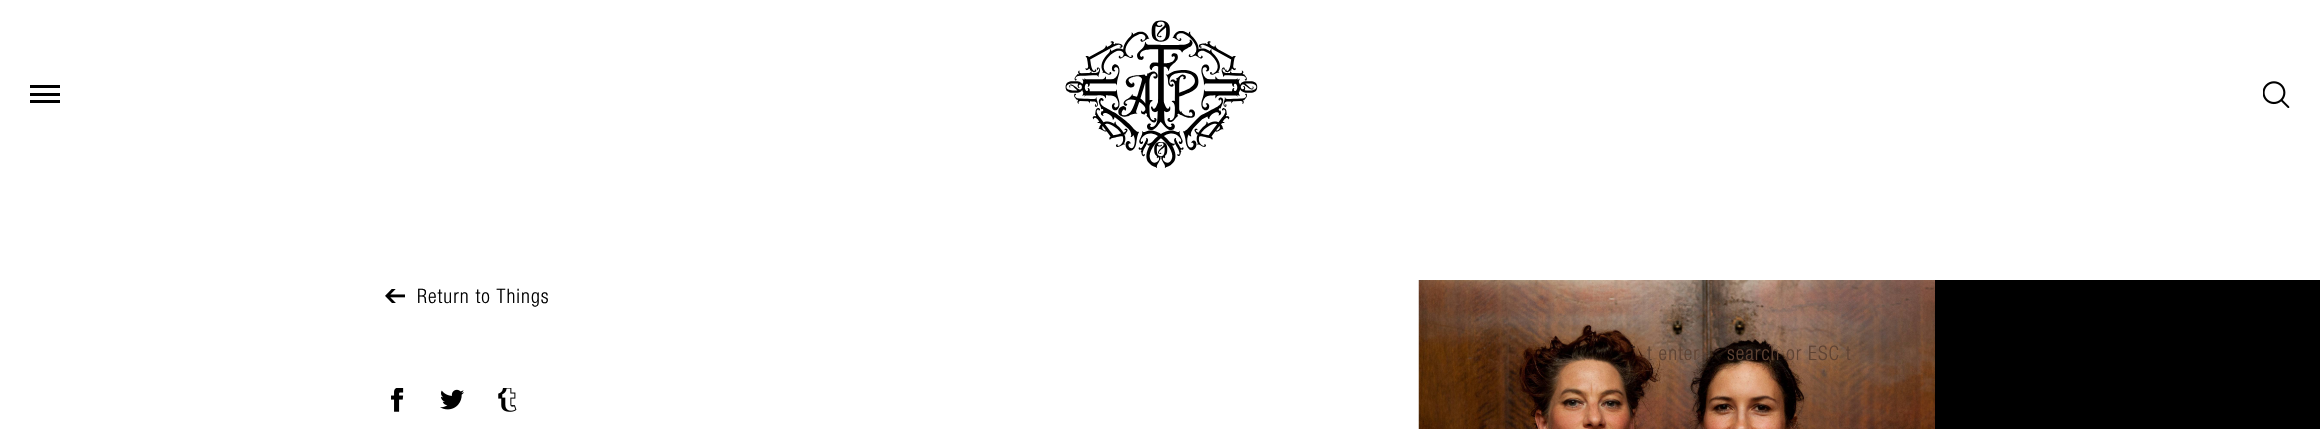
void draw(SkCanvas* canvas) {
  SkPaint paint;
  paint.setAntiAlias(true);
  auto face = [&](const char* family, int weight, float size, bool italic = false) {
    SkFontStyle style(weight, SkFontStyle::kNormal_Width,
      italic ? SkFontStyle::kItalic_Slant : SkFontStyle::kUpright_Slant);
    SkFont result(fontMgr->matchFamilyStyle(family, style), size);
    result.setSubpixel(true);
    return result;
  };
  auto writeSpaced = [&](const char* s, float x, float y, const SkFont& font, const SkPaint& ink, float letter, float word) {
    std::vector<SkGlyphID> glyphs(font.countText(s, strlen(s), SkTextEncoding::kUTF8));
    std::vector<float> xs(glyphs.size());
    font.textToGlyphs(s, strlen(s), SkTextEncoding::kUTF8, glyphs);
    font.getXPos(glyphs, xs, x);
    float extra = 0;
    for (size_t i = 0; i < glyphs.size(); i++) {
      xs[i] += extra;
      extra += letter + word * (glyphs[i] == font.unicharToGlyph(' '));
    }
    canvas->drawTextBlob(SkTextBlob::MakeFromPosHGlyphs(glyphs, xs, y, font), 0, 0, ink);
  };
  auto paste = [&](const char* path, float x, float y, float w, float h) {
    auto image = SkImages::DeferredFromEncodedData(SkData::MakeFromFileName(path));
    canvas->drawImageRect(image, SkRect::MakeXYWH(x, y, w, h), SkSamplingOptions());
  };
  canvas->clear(0xffffffff);
  {
    const struct { float x, y, w, h; SkColor color; } items[] = {
      {30, 85, 30, 3, 0xff000000},
      {30, 93, 30, 3, 0xff000000},
      {30, 100, 30, 3, 0xff000000},
    };
    for (auto [x, y, w, h, color] : items) {
      paint.setColor(color);
      canvas->drawRect(SkRect::MakeXYWH(x, y, w, h), paint);
    }
  }
  paste("img/1.png", 1065, 20, 193, 148);
  paste("img/2.png", 2263, 81, 27, 27);
  paste("img/3.png", 385, 289, 20, 14);
  paste("img/4.png", 391, 388, 13, 24);
  paste("img/5.png", 440, 389, 24, 21);
  paste("img/6.png", 498, 388, 19, 24);
  paste("img/7.png", 1418, 280, 517, 149);
  canvas->drawRect(SkRect::MakeXYWH(1935, 280, 385, 149), paint);
  auto f0 = face("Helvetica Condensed", 300, 20);
  writeSpaced("Return to Things", 417, 303, f0, paint, 1, 0);
  paint.setColor(0xff5f4333);
  writeSpaced("t enter", 1647, 360, f0, paint, 1, 0);
  writeSpaced("search or ESC t", 1727, 360, f0, paint, 1, 0);
}
